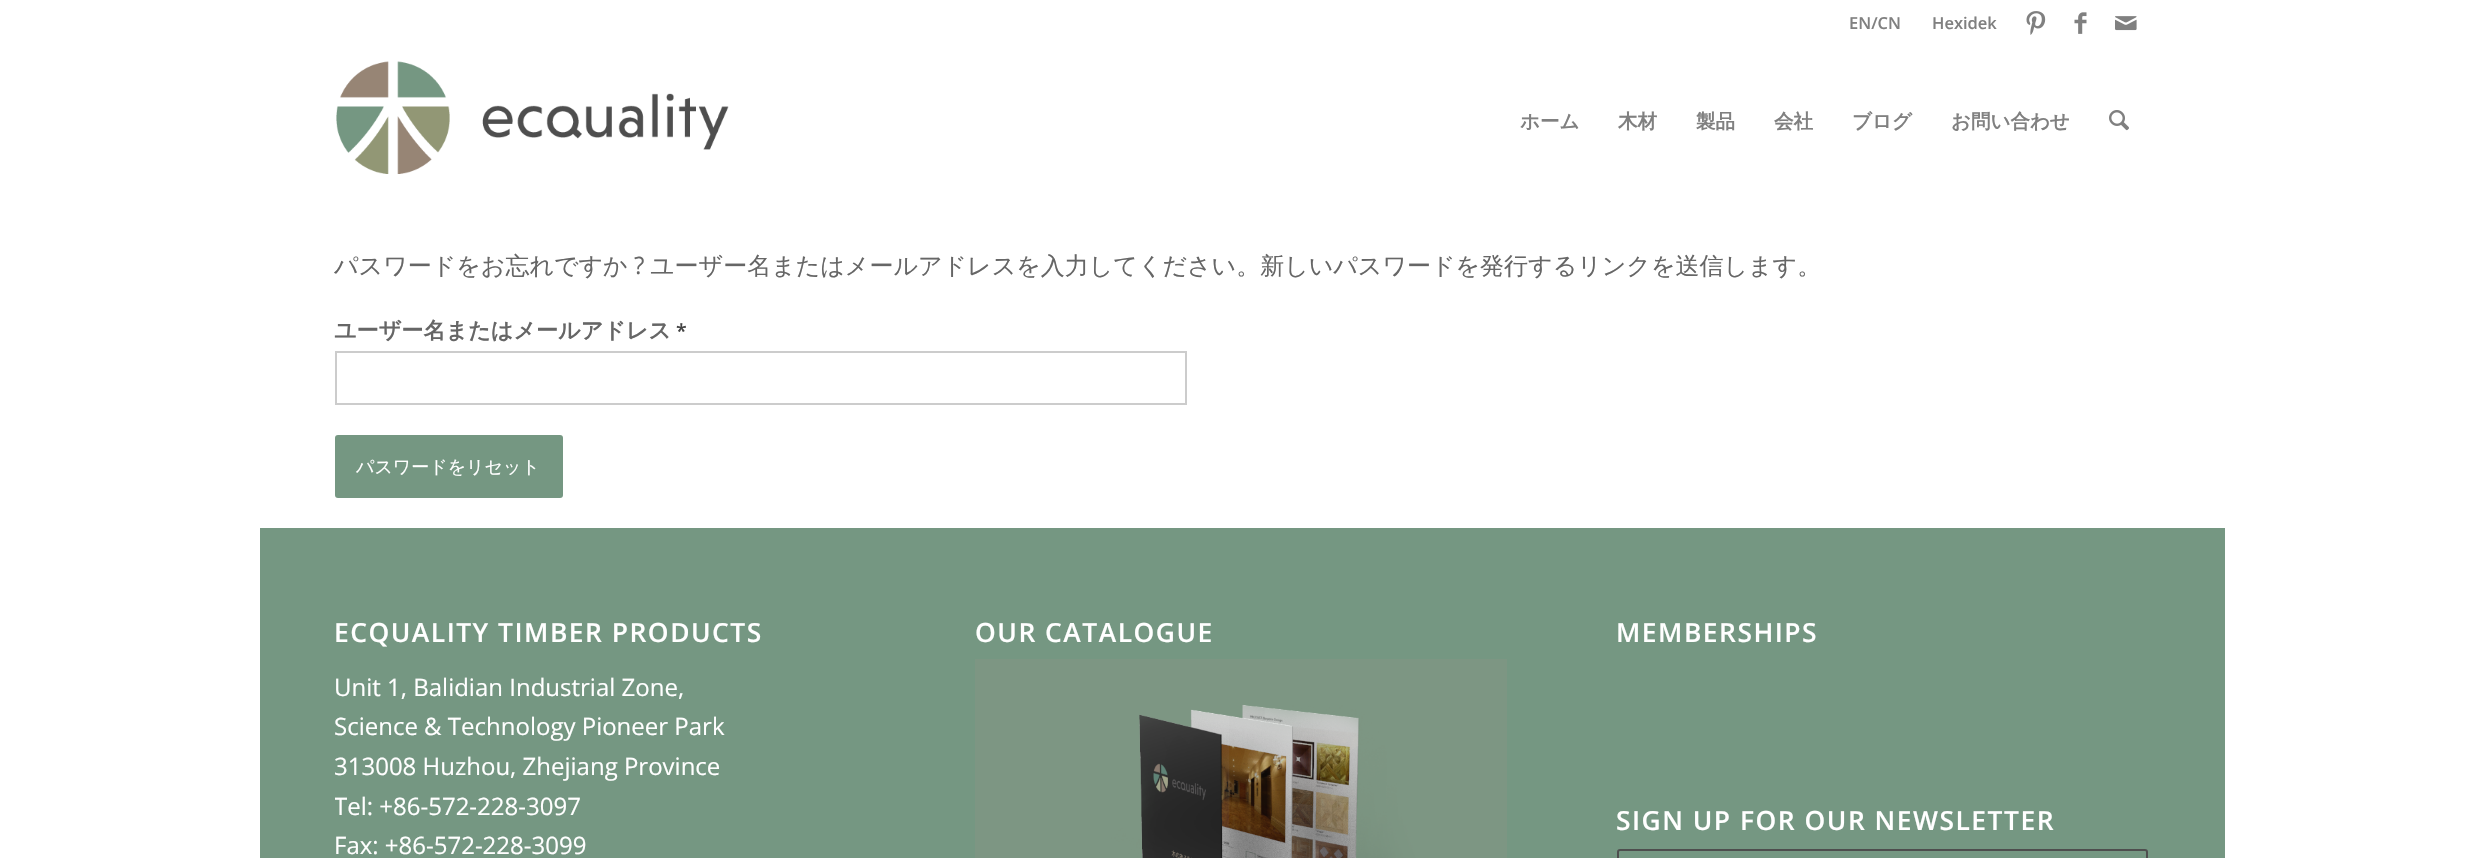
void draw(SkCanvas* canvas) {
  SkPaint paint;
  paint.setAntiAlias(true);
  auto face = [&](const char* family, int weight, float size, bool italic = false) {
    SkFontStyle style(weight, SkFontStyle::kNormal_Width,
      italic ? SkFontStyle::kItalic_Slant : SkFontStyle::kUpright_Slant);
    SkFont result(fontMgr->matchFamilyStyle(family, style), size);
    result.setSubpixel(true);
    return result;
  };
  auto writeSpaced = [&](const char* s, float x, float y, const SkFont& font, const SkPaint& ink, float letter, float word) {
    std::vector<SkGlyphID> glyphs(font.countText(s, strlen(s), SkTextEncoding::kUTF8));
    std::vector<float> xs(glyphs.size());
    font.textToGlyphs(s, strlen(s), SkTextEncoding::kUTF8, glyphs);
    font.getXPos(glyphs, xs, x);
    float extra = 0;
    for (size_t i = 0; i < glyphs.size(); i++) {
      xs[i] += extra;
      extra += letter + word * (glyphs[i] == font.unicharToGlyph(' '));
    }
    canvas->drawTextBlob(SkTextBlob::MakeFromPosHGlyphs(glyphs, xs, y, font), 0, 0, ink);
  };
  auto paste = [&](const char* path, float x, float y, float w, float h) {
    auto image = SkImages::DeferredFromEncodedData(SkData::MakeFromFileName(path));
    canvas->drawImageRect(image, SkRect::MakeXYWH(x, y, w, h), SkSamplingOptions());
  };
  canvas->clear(0xffffffff);
  paste("img/1.png", 2026, 11, 20, 24);
  paste("img/2.png", 2074, 12, 13, 22);
  paste("img/3.png", 2115, 16, 22, 15);
  paste("img/4.png", 336, 61, 393, 113);
  paste("img/5.png", 2109, 110, 20, 21);
  paint.setStroke(true);
  paint.setStrokeWidth(2);
  paint.setColor(0xffcccccc);
  canvas->drawRect(SkRect::MakeXYWH(336, 352, 850, 52), paint);
  paint.setStroke(false);
  paint.setColor(0xff759782);
  canvas->drawRoundRect(SkRect::MakeXYWH(335, 435, 228, 63), 3, 3, paint);
  canvas->drawRect(SkRect::MakeXYWH(260, 528, 1965, 330), paint);
  paste("img/6.png", 975, 659, 532, 199);
  paint.setStroke(true);
  paint.setColor(0xff4e4e4e);
  canvas->drawRoundRect(SkRect::MakeXYWH(1618, 850, 529, 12), 2, 2, paint);
  auto f0 = face("Open Sans", 600, 16.5f);
  paint.setStroke(false);
  paint.setColor(0xff808080);
  canvas->drawString("EN/CN", 1849, 29, f0, paint);
  canvas->drawString("Hexidek", 1932, 29, f0, paint);
  auto f1 = face("WenQuanYi Zen Hei", 700, 19.5f);
  {
    const struct { const char* s; float x, y; } items[] = {
      {"ホーム", 1520, 128},
      {"木材", 1618, 128},
      {"製品", 1696, 128},
      {"会社", 1774, 128},
      {"ブログ", 1852, 128},
      {"お問い合わせ", 1951, 128},
    };
    for (auto [s, x, y] : items) {
      canvas->drawString(s, x, y, f1, paint);
    }
  }
  auto f2 = face("WenQuanYi Zen Hei", 500, 24);
  paint.setColor(0xff666666);
  canvas->drawString("パスワードをお忘れですか", 334, 274, f2, paint);
  auto f3 = face("Open Sans", 400, 24);
  canvas->drawString("?", 634, 274, f3, paint);
  canvas->drawString("ユーザー名またはメールアドレスを入力してください。新しいパスワードを発行するリンクを送信します。", 650, 274, f2, paint);
  auto f4 = face("WenQuanYi Zen Hei", 700, 22.1f);
  canvas->drawString("ユーザー名またはメールアドレス", 334, 338, f4, paint);
  auto f5 = face("Open Sans", 600, 19.5f);
  paint.setColor(0xff444444);
  canvas->drawString("*", 676, 338, f5, paint);
  auto f6 = face("WenQuanYi Zen Hei", 500, 18);
  paint.setColor(0xffffffff);
  canvas->drawString("パスワードをリセット", 356, 473, f6, paint);
  auto f7 = face("Open Sans", 600, 26.4f);
  writeSpaced("ECQUALITY TIMBER PRODUCTS", 334, 642, f7, paint, 1.5f, 0);
  {
    const struct { const char* s; float x, y; } items[] = {
      {"Unit 1, Balidian Industrial Zone,", 334, 696},
      {"Science & Technology Pioneer Park", 334, 735},
      {"313008 Huzhou, Zhejiang Province", 334, 775},
    };
    for (auto [s, x, y] : items) {
      canvas->drawString(s, x, y, f3, paint);
    }
  }
  canvas->save();
  canvas->clipRect(SkRect::MakeXYWH(335, 596, 531, 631));
  canvas->drawString("Tel: +86-572-228-3097", 334, 815, f3, paint);
  canvas->restore();
  canvas->drawString("Fax: +86-572-228-3099", 334, 854, f3, paint);
  {
    const struct { const char* s; float x, y; } items[] = {
      {"OUR CATALOGUE", 975, 642},
      {"MEMBERSHIPS", 1616, 642},
      {"SIGN UP FOR OUR NEWSLETTER", 1616, 830},
    };
    for (auto [s, x, y] : items) {
      writeSpaced(s, x, y, f7, paint, 1.5f, 0);
    }
  }
}
